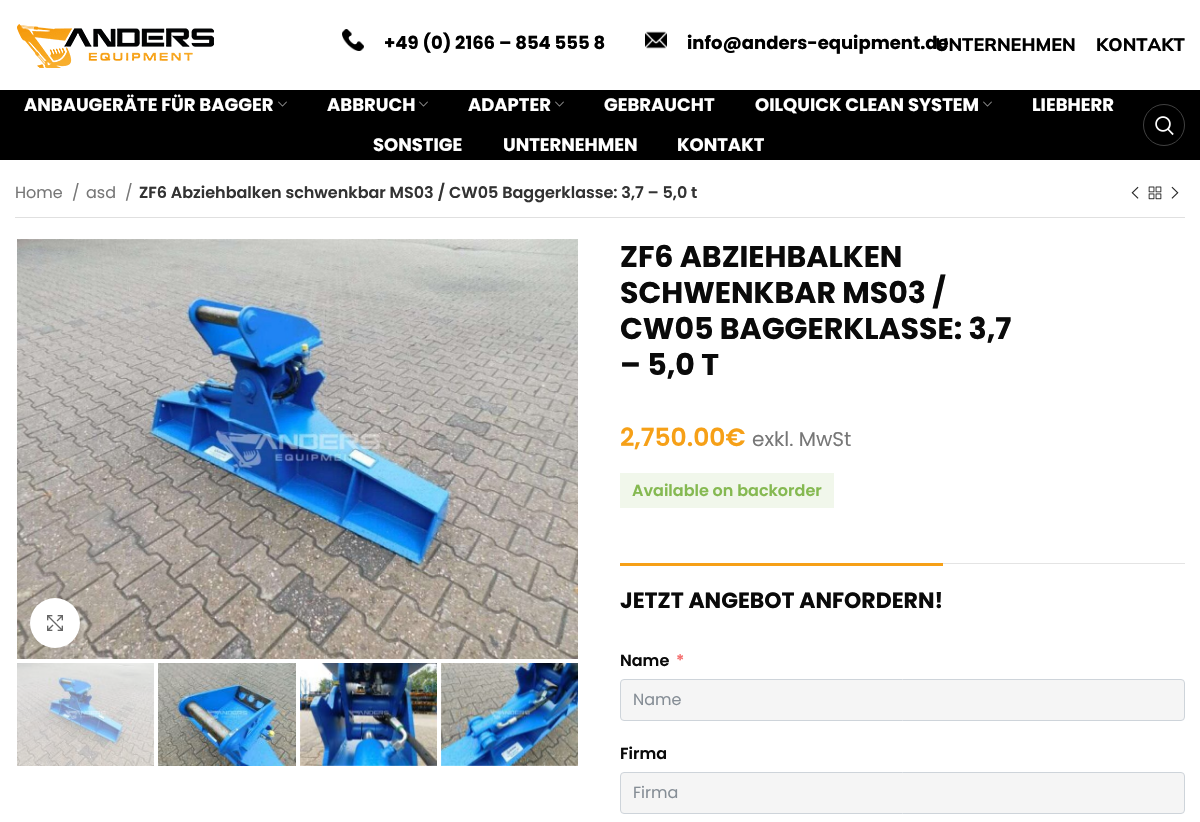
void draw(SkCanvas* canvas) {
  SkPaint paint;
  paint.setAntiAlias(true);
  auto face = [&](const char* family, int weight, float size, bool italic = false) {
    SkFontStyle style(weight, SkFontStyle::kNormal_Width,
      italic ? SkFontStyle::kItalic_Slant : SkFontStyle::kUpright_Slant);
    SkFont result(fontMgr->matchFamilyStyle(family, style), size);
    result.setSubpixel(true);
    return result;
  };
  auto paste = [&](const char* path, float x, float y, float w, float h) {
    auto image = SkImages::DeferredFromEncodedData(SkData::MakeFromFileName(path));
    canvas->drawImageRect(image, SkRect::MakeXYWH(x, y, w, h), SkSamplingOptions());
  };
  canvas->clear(0xffffffff);
  paste("img/1.png", 17, 24, 197, 44);
  paste("img/2.png", 342, 29, 22, 22);
  paste("img/3.png", 645, 31, 22, 18);
  paint.setColor(0xff000000);
  canvas->drawRect(SkRect::MakeXYWH(0, 90, 1200, 70), paint);
  paste("img/4.png", 278, 101, 9, 6);
  paste("img/4.png", 419, 101, 9, 6);
  paste("img/4.png", 555, 101, 9, 6);
  paste("img/4.png", 983, 101, 9, 6);
  paint.setStroke(true);
  paint.setStrokeWidth(1);
  paint.setColor(0xff404040);
  canvas->drawCircle(1164, 125, 20.5f, paint);
  paste("img/5.png", 1155, 116, 19, 20);
  paste("img/6.png", 1131, 186, 8, 13);
  paste("img/7.png", 1148, 186, 14, 14);
  paste("img/8.png", 1171, 186, 8, 13);
  paint.setStroke(false);
  paint.setColor(0xffe0e0e0);
  canvas->drawRect(SkRect::MakeXYWH(15, 217, 1170, 1), paint);
  paste("img/9.png", 17, 239, 561, 420);
  paint.setColor(0x14000000);
  paint.setMaskFilter(SkMaskFilter::MakeBlur(kNormal_SkBlurStyle, 2.5f));
  canvas->drawRoundRect(SkRect::MakeXYWH(30, 598, 50, 50), 25, 25, paint);
  paint.setMaskFilter(nullptr);
  paint.setColor(0xffffffff);
  canvas->drawCircle(55, 623, 25, paint);
  paste("img/10.png", 47, 615, 16, 16);
  paste("img/11.png", 17, 663, 137, 103);
  paste("img/12.png", 158, 663, 138, 103);
  paste("img/13.png", 300, 663, 137, 103);
  paste("img/14.png", 441, 663, 137, 103);
  {
    const struct { float x, y, w, h; SkColor color; } items[] = {
      {620, 473, 214, 35, 0xfff1f7eb},
      {943, 563, 242, 1, 0xffe4e4e4},
      {620, 563, 323, 3, 0xfff6a017},
    };
    for (auto [x, y, w, h, color] : items) {
      paint.setColor(color);
      canvas->drawRect(SkRect::MakeXYWH(x, y, w, h), paint);
    }
  }
  paint.setColor(0xfff5f5f5);
  canvas->drawRoundRect(SkRect::MakeXYWH(620.5f, 679.5f, 564, 41), 3.5f, 3.5f, paint);
  paint.setStroke(true);
  paint.setColor(0xffced4da);
  canvas->drawRoundRect(SkRect::MakeXYWH(620.5f, 679.5f, 564, 41), 3.5f, 3.5f, paint);
  paint.setStroke(false);
  paint.setColor(0xfff5f5f5);
  canvas->drawRoundRect(SkRect::MakeXYWH(620.5f, 772.5f, 564, 41), 3.5f, 3.5f, paint);
  paint.setStroke(true);
  paint.setColor(0xffced4da);
  canvas->drawRoundRect(SkRect::MakeXYWH(620.5f, 772.5f, 564, 41), 3.5f, 3.5f, paint);
  auto f0 = face("Poppins", 700, 18);
  paint.setStroke(false);
  paint.setColor(0xff000000);
  canvas->drawString("+49 (0) 2166 – 854 555 8", 384, 49, f0, paint);
  canvas->drawString("info@anders-equipment.de", 687, 49, f0, paint);
  auto f1 = face("Mulish", 800, 18);
  canvas->drawString("UNTERNEHMEN", 935, 51, f1, paint);
  canvas->drawString("KONTAKT", 1096, 51, f1, paint);
  paint.setColor(0xffffffff);
  {
    const struct { const char* s; float x, y; } items[] = {
      {"ANBAUGERÄTE FÜR BAGGER", 24, 111},
      {"ABBRUCH", 327, 111},
      {"ADAPTER", 468, 111},
      {"GEBRAUCHT", 604, 111},
      {"OILQUICK CLEAN SYSTEM", 755, 111},
      {"LIEBHERR", 1032, 111},
      {"SONSTIGE", 373, 151},
      {"UNTERNEHMEN", 503, 151},
      {"KONTAKT", 677, 151},
    };
    for (auto [s, x, y] : items) {
      canvas->drawString(s, x, y, f0, paint);
    }
  }
  auto f2 = face("Poppins", 400, 16);
  paint.setColor(0xff777777);
  {
    const struct { const char* s; float x, y; } items[] = {
      {"Home", 15, 198},
      {"/", 72, 198},
      {"asd", 86, 198},
      {"/", 125, 198},
    };
    for (auto [s, x, y] : items) {
      canvas->drawString(s, x, y, f2, paint);
    }
  }
  auto f3 = face("Poppins", 600, 16);
  paint.setColor(0xff333333);
  canvas->drawString("ZF6 Abziehbalken schwenkbar MS03 / CW05 Baggerklasse: 3,7 – 5,0 t", 139, 198, f3, paint);
  auto f4 = face("Poppins", 700, 30);
  paint.setColor(0xff0a0a0a);
  {
    const struct { const char* s; float x, y; } items[] = {
      {"ZF6 ABZIEHBALKEN", 620, 267},
      {"SCHWENKBAR MS03 /", 620, 303},
      {"CW05 BAGGERKLASSE: 3,7", 620, 339},
      {"– 5,0 T", 620, 375},
    };
    for (auto [s, x, y] : items) {
      canvas->drawString(s, x, y, f4, paint);
    }
  }
  auto f5 = face("Poppins", 600, 25);
  paint.setColor(0xfff6a017);
  canvas->drawString("2,750.00€", 620, 446, f5, paint);
  auto f6 = face("Poppins", 400, 20);
  paint.setColor(0xff777777);
  canvas->drawString("exkl. MwSt", 752, 446, f6, paint);
  paint.setColor(0xff85b951);
  canvas->drawString("Available on backorder", 632, 496, f3, paint);
  auto f7 = face("Poppins", 700, 22);
  paint.setColor(0xff0a0a0a);
  canvas->drawString("JETZT ANGEBOT ANFORDERN!", 620, 608, f7, paint);
  canvas->drawString("Name", 620, 666, f3, paint);
  paint.setColor(0xfff56c6c);
  canvas->drawString("*", 676, 666, f3, paint);
  paint.setColor(0xff868e96);
  canvas->drawString("Name", 633, 705, f2, paint);
  paint.setColor(0xff0a0a0a);
  canvas->drawString("Firma", 620, 759, f3, paint);
  paint.setColor(0xff868e96);
  canvas->drawString("Firma", 633, 798, f2, paint);
}
